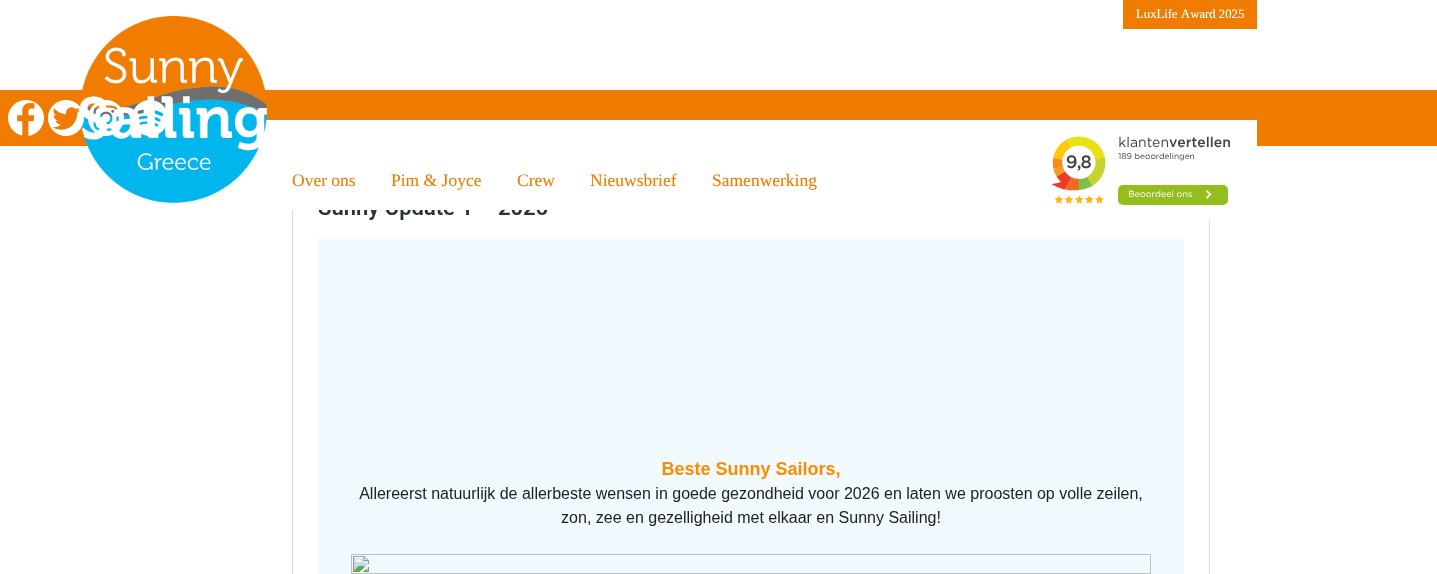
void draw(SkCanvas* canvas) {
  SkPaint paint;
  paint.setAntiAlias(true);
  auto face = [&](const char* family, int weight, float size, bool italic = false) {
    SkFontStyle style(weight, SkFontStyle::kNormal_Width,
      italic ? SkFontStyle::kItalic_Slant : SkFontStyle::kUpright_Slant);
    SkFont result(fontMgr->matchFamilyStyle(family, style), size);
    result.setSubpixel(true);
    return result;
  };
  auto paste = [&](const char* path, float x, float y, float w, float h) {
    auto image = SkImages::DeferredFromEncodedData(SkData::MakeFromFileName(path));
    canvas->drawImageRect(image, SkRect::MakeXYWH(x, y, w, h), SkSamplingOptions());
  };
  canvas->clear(0xffffffff);
  {
    const struct { float x, y, w, h; SkColor color; } items[] = {
      {1123, 0, 134, 29, 0xffef7c00},
      {0, 90, 1437, 56, 0xffef7c00},
      {180, 120, 1077, 26, 0xffffffff},
    };
    for (auto [x, y, w, h, color] : items) {
      paint.setColor(color);
      canvas->drawRect(SkRect::MakeXYWH(x, y, w, h), paint);
    }
  }
  paste("img/1.png", 80, 16, 187, 187);
  paste("img/2.png", 8, 100, 36, 36);
  paste("img/3.png", 48, 100, 36, 36);
  paste("img/4.png", 88, 100, 36, 36);
  paste("img/5.png", 134, 100, 32, 36);
  paste("img/7.png", 292, 210, 918, 364);
  paste("img/6.png", 1052, 136, 178, 84);
  auto f0 = face("Liberation Serif", 400, 12.75f);
  canvas->drawString("LuxLife Award 2025", 1136, 18, f0, paint);
  auto f1 = face("Liberation Serif", 400, 17.5f);
  paint.setColor(0xffef7c00);
  {
    const struct { const char* s; float x, y; } items[] = {
      {"Over ons", 292, 186},
      {"Pim & Joyce", 391, 186},
      {"Crew", 517, 186},
      {"Nieuwsbrief", 590, 186},
      {"Samenwerking", 712, 186},
    };
    for (auto [s, x, y] : items) {
      canvas->drawString(s, x, y, f1, paint);
    }
  }
}
